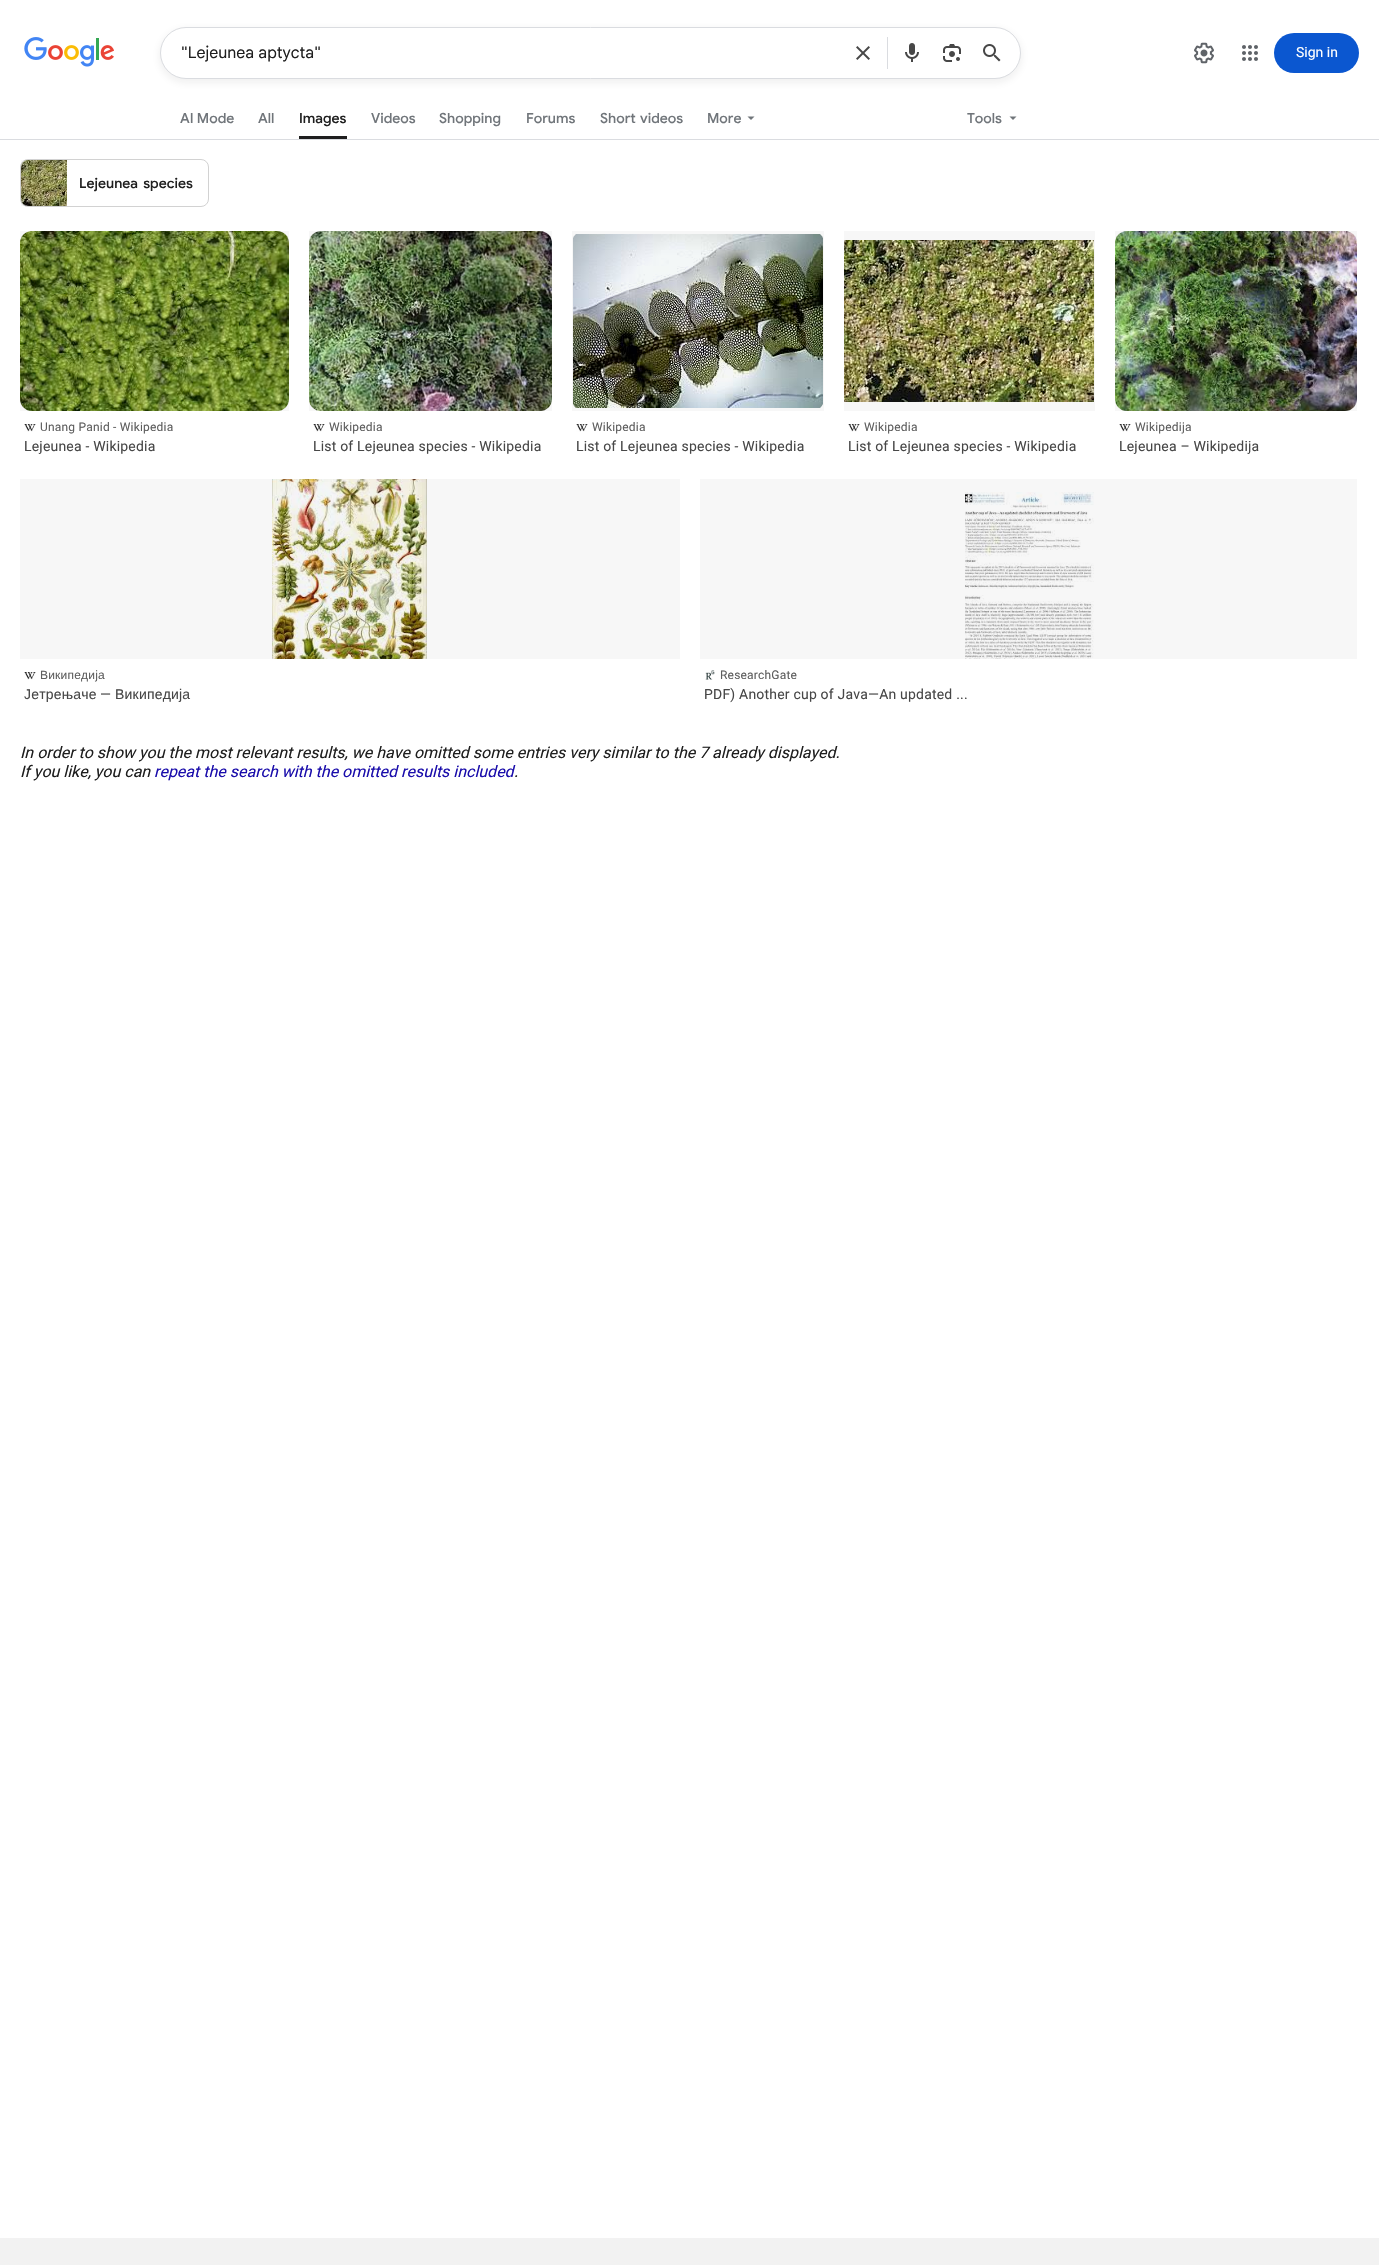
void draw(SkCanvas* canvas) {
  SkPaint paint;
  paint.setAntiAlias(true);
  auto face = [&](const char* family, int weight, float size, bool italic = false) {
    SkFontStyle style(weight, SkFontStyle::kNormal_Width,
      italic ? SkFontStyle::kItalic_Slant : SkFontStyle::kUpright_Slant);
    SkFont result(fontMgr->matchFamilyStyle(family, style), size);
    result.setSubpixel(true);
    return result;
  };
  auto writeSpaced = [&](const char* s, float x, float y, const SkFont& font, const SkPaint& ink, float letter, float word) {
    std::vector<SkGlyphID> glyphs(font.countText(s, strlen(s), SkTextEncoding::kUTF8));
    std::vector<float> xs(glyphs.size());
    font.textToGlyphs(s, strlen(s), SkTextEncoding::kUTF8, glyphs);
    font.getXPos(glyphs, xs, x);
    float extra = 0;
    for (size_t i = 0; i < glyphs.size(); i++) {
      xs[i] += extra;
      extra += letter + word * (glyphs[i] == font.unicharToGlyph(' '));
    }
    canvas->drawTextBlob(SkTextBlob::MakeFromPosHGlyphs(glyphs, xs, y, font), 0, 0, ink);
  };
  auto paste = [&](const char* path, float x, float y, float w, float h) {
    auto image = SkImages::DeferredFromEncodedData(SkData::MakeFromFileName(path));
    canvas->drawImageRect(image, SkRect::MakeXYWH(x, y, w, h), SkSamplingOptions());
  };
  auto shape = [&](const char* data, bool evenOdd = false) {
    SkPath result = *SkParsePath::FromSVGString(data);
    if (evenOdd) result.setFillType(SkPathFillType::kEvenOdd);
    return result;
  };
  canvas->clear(0xffffffff);
  paste("img/1.png", 24, 37, 90, 30);
  paint.setColor(0x141f1f1f);
  paint.setMaskFilter(SkMaskFilter::MakeBlur(kNormal_SkBlurStyle, 5));
  canvas->drawRoundRect(SkRect::MakeXYWH(160, 30, 861, 52), 26, 26, paint);
  paint.setMaskFilter(nullptr);
  paint.setColor(0xffffffff);
  canvas->drawRoundRect(SkRect::MakeXYWH(160.5f, 27.5f, 860, 51), 25.5f, 25.5f, paint);
  paint.setStroke(true);
  paint.setStrokeWidth(1);
  paint.setColor(0xffdadce0);
  canvas->drawRoundRect(SkRect::MakeXYWH(160.5f, 27.5f, 860, 51), 25.5f, 25.5f, paint);
  paste("img/2.png", 856, 46, 14, 14);
  paint.setStroke(false);
  canvas->drawRect(SkRect::MakeXYWH(887, 37, 1, 32), paint);
  paste("img/3.png", 905, 43, 14, 19);
  paste("img/4.png", 943, 44, 18, 18);
  paste("img/5.png", 983, 44, 18, 18);
  paste("img/6.png", 1194, 42, 20, 22);
  paste("img/7.png", 1242, 45, 16, 16);
  paint.setColor(0xff0b57d0);
  canvas->drawRoundRect(SkRect::MakeXYWH(1274, 33, 85, 40), 20, 20, paint);
  paint.setColor(0xff1f1f1f);
  canvas->drawRect(SkRect::MakeXYWH(299, 136, 48, 3), paint);
  paint.setColor(0xff70757a);
  canvas->drawPath(shape("M747.5 116.5L751 120L754.5 116.5Z"), paint);
  canvas->drawPath(shape("M1009.5 116.5L1013 120L1016.5 116.5Z"), paint);
  paint.setColor(0xffdadce0);
  canvas->drawRect(SkRect::MakeXYWH(0, 139, 1379, 1), paint);
  paint.setStroke(true);
  paint.setColor(0xffd2d2d2);
  canvas->drawRoundRect(SkRect::MakeXYWH(20.5f, 159.5f, 188, 47), 7.5f, 7.5f, paint);
  paste("img/8.png", 21, 160, 46, 46);
  paint.setStroke(false);
  paint.setColor(0x08000000);
  canvas->drawRect(SkRect::MakeXYWH(21, 160, 46, 46), paint);
  paste("img/9.png", 20, 231, 269, 180);
  canvas->drawRect(SkRect::MakeXYWH(20, 231, 269, 180), paint);
  paste("img/10.png", 24, 424, 12, 8);
  paste("img/11.png", 309, 231, 243, 180);
  canvas->drawRect(SkRect::MakeXYWH(309, 231, 243, 180), paint);
  paste("img/12.png", 313, 424, 12, 8);
  paste("img/13.png", 573, 234, 250, 174);
  canvas->drawRect(SkRect::MakeXYWH(572, 231, 252, 180), paint);
  paste("img/12.png", 576, 424, 12, 8);
  paste("img/14.png", 844, 240, 250, 162);
  canvas->drawRect(SkRect::MakeXYWH(844, 231, 251, 180), paint);
  paste("img/12.png", 848, 424, 12, 8);
  paste("img/15.png", 1115, 231, 242, 180);
  canvas->drawRect(SkRect::MakeXYWH(1115, 231, 242, 180), paint);
  paste("img/12.png", 1119, 424, 12, 8);
  paste("img/16.png", 272, 479, 155, 180);
  canvas->drawRect(SkRect::MakeXYWH(20, 479, 660, 180), paint);
  paste("img/10.png", 24, 672, 12, 8);
  paste("img/17.png", 965, 492, 129, 167);
  canvas->drawRect(SkRect::MakeXYWH(700, 479, 657, 180), paint);
  paste("img/18.png", 705, 670, 10, 10);
  paint.setColor(0xfff2f2f2);
  canvas->drawRect(SkRect::MakeXYWH(0, 2238, 1379, 27), paint);
  auto f0 = face("Google Sans", 400, 16);
  paint.setColor(0xff1f1f1f);
  canvas->drawString("\"Lejeunea aptycta\"", 181, 58, f0, paint);
  auto f1 = face("Roboto", 400, 14);
  paint.setColor(0xffffffff);
  canvas->drawString("Sign in", 1296, 57, f1, paint);
  auto f2 = face("Google Sans", 500, 14);
  paint.setColor(0xff70757a);
  canvas->drawString("AI Mode", 180, 123, f2, paint);
  canvas->drawString("All", 258, 123, f2, paint);
  paint.setColor(0xff1f1f1f);
  canvas->drawString("Images", 299, 123, f2, paint);
  paint.setColor(0xff70757a);
  {
    const struct { const char* s; float x, y; } items[] = {
      {"Videos", 371, 123},
      {"Shopping", 439, 123},
      {"Forums", 526, 123},
    };
    for (auto [s, x, y] : items) {
      canvas->drawString(s, x, y, f2, paint);
    }
  }
  writeSpaced("Short videos", 600, 123, f2, paint, 0, 1);
  canvas->drawString("More", 707, 123, f2, paint);
  canvas->drawString("Tools", 967, 123, f2, paint);
  paint.setColor(0xff1f1f1f);
  writeSpaced("Lejeunea species", 79, 188, f2, paint, 0, 2);
  auto f3 = face("Roboto", 400, 12);
  paint.setColor(0xff5e5e5e);
  writeSpaced("Unang Panid - Wikipedia", 40, 431, f3, paint, 0.2f, 0);
  paint.setColor(0xff474747);
  writeSpaced("Lejeunea - Wikipedia", 24, 451, f1, paint, 0.2f, 0);
  paint.setColor(0xff5e5e5e);
  writeSpaced("Wikipedia", 329, 431, f3, paint, 0.2f, 0);
  paint.setColor(0xff474747);
  writeSpaced("List of Lejeunea species - Wikipedia", 313, 451, f1, paint, 0.2f, 0);
  paint.setColor(0xff5e5e5e);
  writeSpaced("Wikipedia", 592, 431, f3, paint, 0.2f, 0);
  paint.setColor(0xff474747);
  writeSpaced("List of Lejeunea species - Wikipedia", 576, 451, f1, paint, 0.2f, 0);
  paint.setColor(0xff5e5e5e);
  writeSpaced("Wikipedia", 864, 431, f3, paint, 0.2f, 0);
  paint.setColor(0xff474747);
  writeSpaced("List of Lejeunea species - Wikipedia", 848, 451, f1, paint, 0.2f, 0);
  paint.setColor(0xff5e5e5e);
  writeSpaced("Wikipedija", 1135, 431, f3, paint, 0.2f, 0);
  paint.setColor(0xff474747);
  writeSpaced("Lejeunea – Wikipedija", 1119, 451, f1, paint, 0.2f, 0);
  auto f4 = face("Liberation Sans", 400, 12);
  paint.setColor(0xff5e5e5e);
  writeSpaced("Википедија", 40, 679, f4, paint, 0.2f, 0);
  auto f5 = face("Liberation Sans", 400, 14);
  paint.setColor(0xff474747);
  writeSpaced("Јетрењаче", 24, 699, f5, paint, 0.2f, 0);
  writeSpaced("—", 100, 699, f1, paint, 0.2f, 0);
  writeSpaced("Википедија", 115, 699, f5, paint, 0.2f, 0);
  paint.setColor(0xff5e5e5e);
  writeSpaced("ResearchGate", 720, 679, f3, paint, 0.2f, 0);
  paint.setColor(0xff474747);
  writeSpaced("PDF) Another cup of Java—An updated ...", 704, 699, f1, paint, 0.2f, 0);
  auto f6 = face("Roboto", 400, 16, true);
  paint.setColor(0xff1f1f1f);
  canvas->drawString("In order to show you the most relevant results, we have omitted some entries very similar to the 7 already displayed.", 20, 758, f6, paint);
  canvas->drawString("If you like, you can", 20, 777, f6, paint);
  paint.setColor(0xff1a0dab);
  canvas->drawString("repeat the search with the omitted results included", 154, 777, f6, paint);
  paint.setColor(0xff1f1f1f);
  canvas->drawString(".", 514, 777, f6, paint);
}
